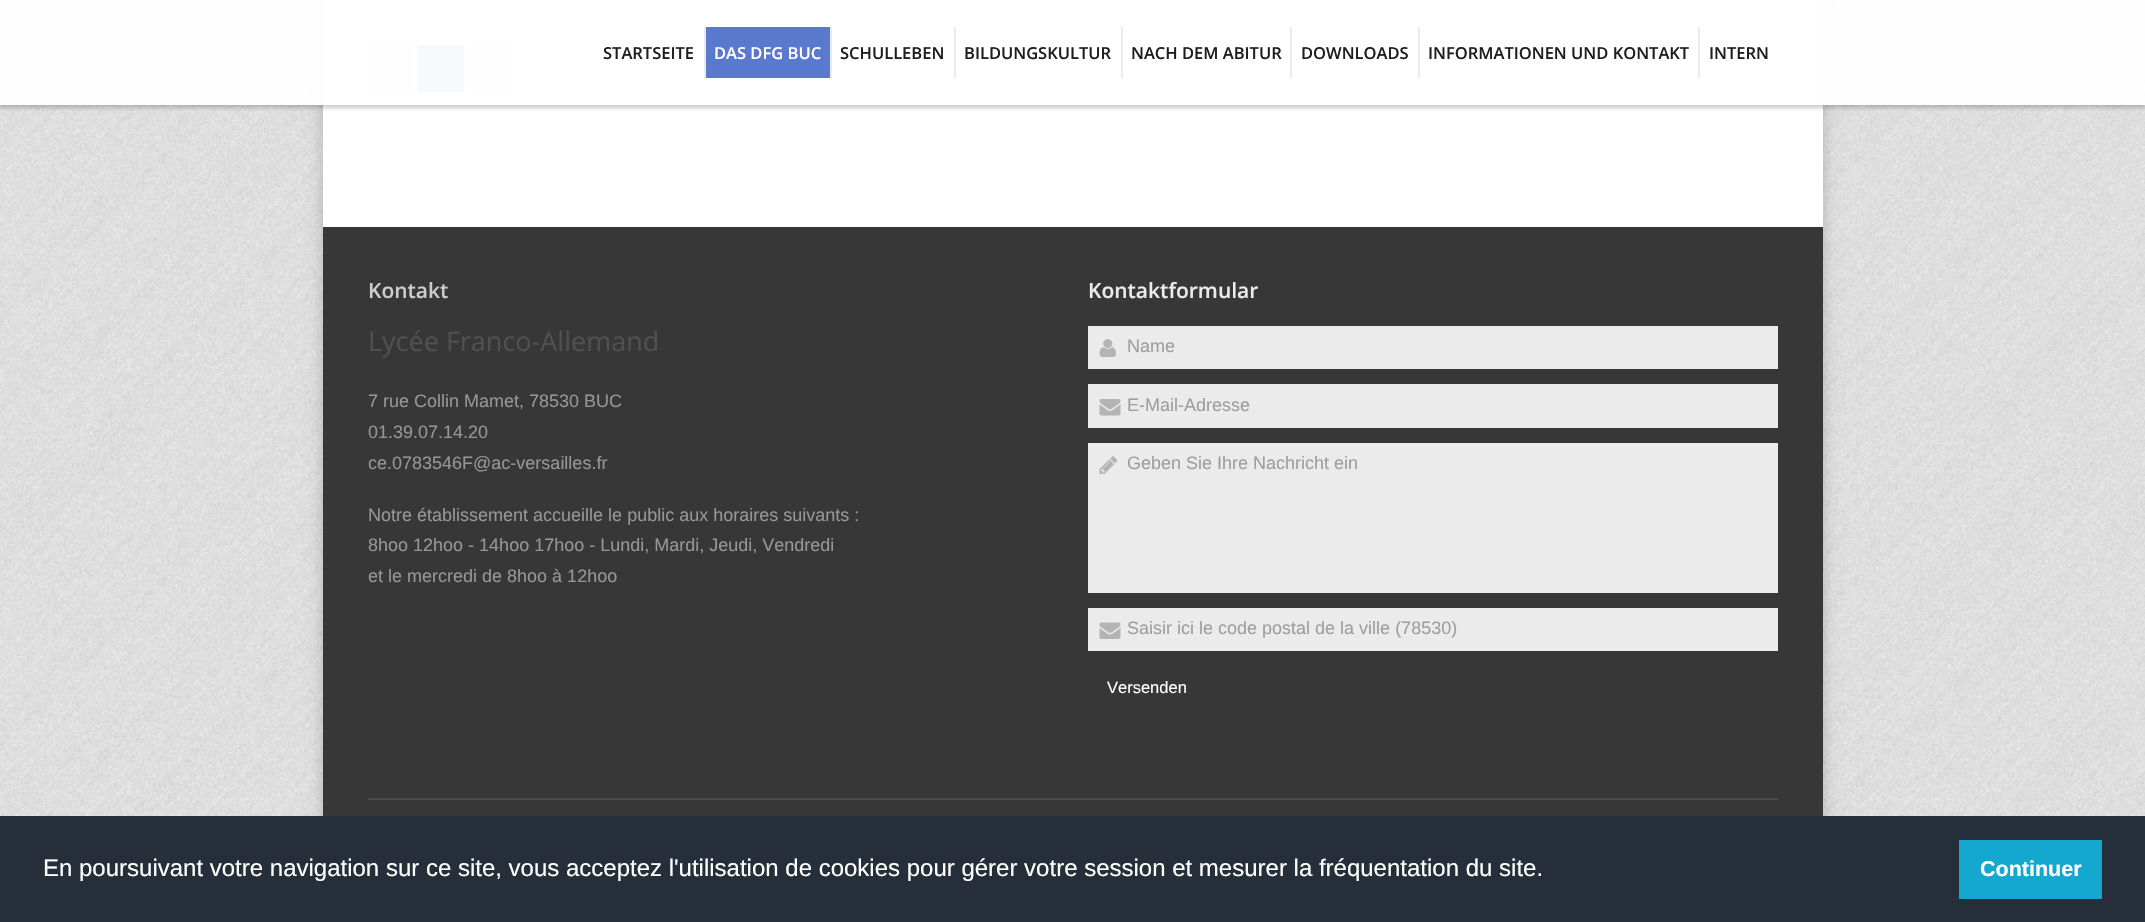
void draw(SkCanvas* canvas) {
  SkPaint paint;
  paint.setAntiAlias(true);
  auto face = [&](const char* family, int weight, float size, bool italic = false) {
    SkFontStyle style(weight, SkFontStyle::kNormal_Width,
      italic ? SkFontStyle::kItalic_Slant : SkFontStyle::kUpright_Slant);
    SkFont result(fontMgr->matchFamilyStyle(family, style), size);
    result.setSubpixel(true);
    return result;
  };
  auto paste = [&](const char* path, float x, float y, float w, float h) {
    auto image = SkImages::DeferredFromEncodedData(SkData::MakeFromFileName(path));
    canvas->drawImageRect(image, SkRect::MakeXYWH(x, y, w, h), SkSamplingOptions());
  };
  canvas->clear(0xffffffff);
  paste("img/1.png", 0, 0, 2145, 816);
  paint.setColor(0x33000000);
  paint.setMaskFilter(SkMaskFilter::MakeBlur(kNormal_SkBlurStyle, 7.5f));
  canvas->drawRect(SkRect::MakeXYWH(323, -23, 1500, 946), paint);
  paint.setMaskFilter(nullptr);
  {
    const struct { float x, y, w, h; SkColor color; } items[] = {
      {323, 0, 1500, 227, 0xffffffff},
      {368, 45, 46, 47, 0xffe9e9e9},
      {417, 45, 47, 47, 0xff5979ce},
      {467, 45, 46, 47, 0xffe9e9e9},
    };
    for (auto [x, y, w, h, color] : items) {
      paint.setColor(color);
      canvas->drawRect(SkRect::MakeXYWH(x, y, w, h), paint);
    }
  }
  canvas->save();
  canvas->clipRect(SkRect::MakeXYWH(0, 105, 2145, 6));
  paint.setColor(0x33000000);
  paint.setMaskFilter(SkMaskFilter::MakeBlur(kNormal_SkBlurStyle, 2));
  canvas->drawRect(SkRect::MakeXYWH(0, 3, 2145, 105), paint);
  paint.setMaskFilter(nullptr);
  canvas->restore();
  {
    const struct { float x, y, w, h; SkColor color; } items[] = {
      {0, 0, 2145, 105, 0xf2ffffff},
      {706, 27, 124, 51, 0xff5979ce},
      {704, 27, 2, 51, 0xffebebeb},
      {830, 27, 2, 51, 0xffebebeb},
      {954, 27, 2, 51, 0xffebebeb},
      {1121, 27, 2, 51, 0xffebebeb},
      {1290, 27, 2, 51, 0xffebebeb},
      {1418, 27, 2, 51, 0xffebebeb},
      {1698, 27, 2, 51, 0xffebebeb},
      {323, 227, 1500, 589, 0xff373737},
      {1088, 326, 690, 43, 0xffebebeb},
    };
    for (auto [x, y, w, h, color] : items) {
      paint.setColor(color);
      canvas->drawRect(SkRect::MakeXYWH(x, y, w, h), paint);
    }
  }
  paste("img/2.png", 1099, 339, 17, 18);
  canvas->drawRect(SkRect::MakeXYWH(1088, 384, 690, 44), paint);
  paste("img/3.png", 1099, 399, 22, 17);
  canvas->drawRect(SkRect::MakeXYWH(1088, 443, 690, 150), paint);
  paste("img/4.png", 1099, 456, 19, 18);
  canvas->drawRect(SkRect::MakeXYWH(1088, 608, 690, 43), paint);
  paste("img/5.png", 1099, 622, 22, 17);
  {
    const struct { float x, y, w, h; SkColor color; } items[] = {
      {368, 798, 1410, 2, 0xff4a4a4a},
      {0, 816, 2145, 106, 0xff252e39},
      {1959, 840, 143, 59, 0xff14a7d0},
    };
    for (auto [x, y, w, h, color] : items) {
      paint.setColor(color);
      canvas->drawRect(SkRect::MakeXYWH(x, y, w, h), paint);
    }
  }
  auto f0 = face("Open Sans", 600, 16.5f);
  paint.setColor(0xff1e1e1e);
  canvas->drawString("STARTSEITE", 603, 59, f0, paint);
  paint.setColor(0xffffffff);
  canvas->drawString("DAS DFG BUC", 714, 59, f0, paint);
  paint.setColor(0xff1e1e1e);
  {
    const struct { const char* s; float x, y; } items[] = {
      {"SCHULLEBEN", 840, 59},
      {"BILDUNGSKULTUR", 964, 59},
      {"NACH DEM ABITUR", 1131, 59},
      {"DOWNLOADS", 1301, 59},
      {"INFORMATIONEN UND KONTAKT", 1428, 59},
      {"INTERN", 1709, 59},
    };
    for (auto [s, x, y] : items) {
      canvas->drawString(s, x, y, f0, paint);
    }
  }
  auto f1 = face("Open Sans", 600, 21);
  paint.setColor(0xffcccccc);
  canvas->drawString("Kontakt", 368, 298, f1, paint);
  auto f2 = face("Open Sans", 400, 27);
  paint.setColor(0xff505050);
  canvas->drawString("Lycée Franco-Allemand", 368, 351, f2, paint);
  auto f3 = face("Liberation Sans", 400, 18);
  paint.setColor(0xff969696);
  {
    const struct { const char* s; float x, y; } items[] = {
      {"7 rue Collin Mamet, 78530 BUC", 368, 407},
      {"01.39.07.14.20", 368, 438},
      {"ce.0783546F@ac-versailles.fr", 368, 469},
      {"Notre établissement accueille le public aux horaires suivants :", 368, 521},
      {"8hoo 12hoo - 14hoo 17hoo - Lundi, Mardi, Jeudi, Vendredi", 368, 551},
      {"et le mercredi de 8hoo à 12hoo", 368, 582},
    };
    for (auto [s, x, y] : items) {
      canvas->drawString(s, x, y, f3, paint);
    }
  }
  paint.setColor(0xffebebeb);
  canvas->drawString("Kontaktformular", 1088, 298, f1, paint);
  paint.setColor(0xff9e9e9e);
  {
    const struct { const char* s; float x, y; } items[] = {
      {"Name", 1127, 352},
      {"E-Mail-Adresse", 1127, 411},
      {"Geben Sie Ihre Nachricht ein", 1127, 469},
      {"Saisir ici le code postal de la ville (78530)", 1127, 634},
    };
    for (auto [s, x, y] : items) {
      canvas->drawString(s, x, y, f3, paint);
    }
  }
  auto f4 = face("Liberation Sans", 400, 16.5f);
  paint.setColor(0xffffffff);
  canvas->drawString("Versenden", 1107, 693, f4, paint);
  auto f5 = face("Liberation Sans", 400, 24);
  canvas->drawString("En poursuivant votre navigation sur ce site, vous acceptez l'utilisation de cookies pour gérer votre session et mesurer la fréquentation du site.", 43, 876, f5, paint);
  auto f6 = face("Liberation Sans", 700, 21.5f);
  canvas->drawString("Continuer", 1980, 876, f6, paint);
}
